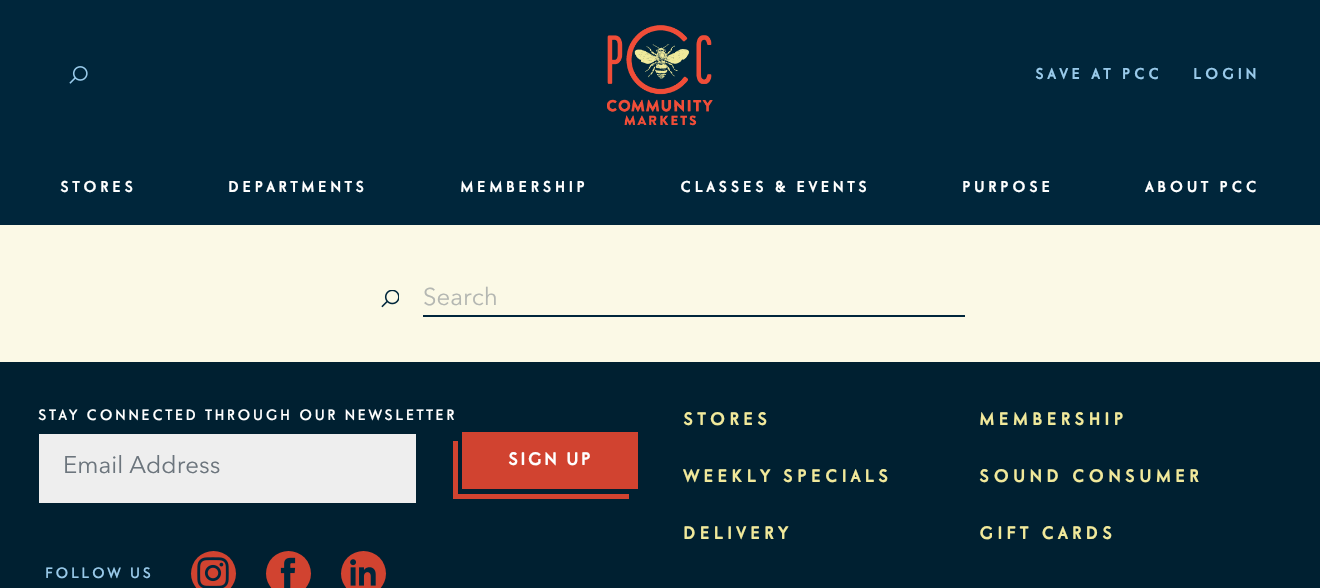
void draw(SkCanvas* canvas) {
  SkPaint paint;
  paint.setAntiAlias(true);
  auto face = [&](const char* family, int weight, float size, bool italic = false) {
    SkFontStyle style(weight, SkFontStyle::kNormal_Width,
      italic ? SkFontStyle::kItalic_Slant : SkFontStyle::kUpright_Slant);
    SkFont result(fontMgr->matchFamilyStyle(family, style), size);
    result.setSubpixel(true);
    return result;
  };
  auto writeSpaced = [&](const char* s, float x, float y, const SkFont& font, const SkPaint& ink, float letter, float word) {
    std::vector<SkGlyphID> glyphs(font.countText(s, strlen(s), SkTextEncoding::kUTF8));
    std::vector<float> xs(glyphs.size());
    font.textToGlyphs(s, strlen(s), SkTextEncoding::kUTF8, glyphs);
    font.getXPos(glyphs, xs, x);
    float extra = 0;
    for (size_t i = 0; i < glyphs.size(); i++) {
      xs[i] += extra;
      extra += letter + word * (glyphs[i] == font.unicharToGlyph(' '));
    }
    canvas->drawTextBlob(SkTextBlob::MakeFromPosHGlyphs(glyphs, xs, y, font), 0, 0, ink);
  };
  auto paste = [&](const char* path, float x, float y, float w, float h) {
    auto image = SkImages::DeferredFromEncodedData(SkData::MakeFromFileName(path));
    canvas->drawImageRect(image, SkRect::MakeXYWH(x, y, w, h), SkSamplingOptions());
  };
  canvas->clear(0xfffbf9e6);
  paint.setColor(0xff00263b);
  canvas->drawRect(SkRect::MakeXYWH(0, 0, 1320, 225), paint);
  paste("img/1.png", 69, 66, 19, 18);
  paste("img/2.png", 607, 25, 106, 101);
  paste("img/3.png", 381, 290, 18, 18);
  {
    const struct { float x, y, w, h; SkColor color; } items[] = {
      {423, 315, 542, 2, 0xff00263b},
      {0, 362, 1320, 226, 0xff002031},
      {39, 434, 377, 69, 0xffeeeeee},
      {462, 432, 176, 57, 0xffd14330},
      {453, 494, 176, 5, 0xffd14330},
      {453, 441, 5, 57, 0xffd14330},
    };
    for (auto [x, y, w, h, color] : items) {
      paint.setColor(color);
      canvas->drawRect(SkRect::MakeXYWH(x, y, w, h), paint);
    }
  }
  canvas->drawCircle(213.5f, 573.5f, 22.5f, paint);
  paste("img/4.png", 197, 557, 32, 31);
  canvas->drawCircle(288.5f, 573.5f, 22.5f, paint);
  paste("img/5.png", 280, 557, 16, 31);
  canvas->drawCircle(363.5f, 573.5f, 22.5f, paint);
  paste("img/6.png", 350, 559, 26, 27);
  auto f0 = face("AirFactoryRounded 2", 400, 15.6f);
  paint.setColor(0xff99caea);
  writeSpaced("SAVE AT PCC", 1035, 79, f0, paint, 3.1f, 0);
  writeSpaced("LOGIN", 1193, 79, f0, paint, 3.1f, 0);
  paint.setColor(0xffffffff);
  {
    const struct { const char* s; float x, y; } items[] = {
      {"STORES", 60, 192},
      {"DEPARTMENTS", 228, 192},
      {"MEMBERSHIP", 460, 192},
      {"CLASSES & EVENTS", 680, 192},
      {"PURPOSE", 962, 192},
      {"ABOUT PCC", 1145, 192},
    };
    for (auto [s, x, y] : items) {
      writeSpaced(s, x, y, f0, paint, 3.1f, 0);
    }
  }
  auto f1 = face("Avenir Next", 400, 24);
  paint.setColor(0xffb4b7b2);
  canvas->drawString("Search", 423, 305, f1, paint);
  auto f2 = face("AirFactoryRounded", 400, 15);
  paint.setColor(0xffffffff);
  writeSpaced("STAY CONNECTED THROUGH OUR NEWSLETTER", 38, 420, f2, paint, 2.25f, 0);
  canvas->save();
  canvas->clipRect(SkRect::MakeXYWH(63, 455, 329, 28));
  paint.setColor(0xff6c757d);
  canvas->drawString("Email Address", 63, 473, f1, paint);
  canvas->restore();
  auto f3 = face("AirFactoryRounded 2", 400, 18);
  paint.setColor(0xffffffff);
  writeSpaced("SIGN UP", 508, 465, f3, paint, 1.75f, 0);
  paint.setColor(0xff99caea);
  writeSpaced("FOLLOW US", 45, 578, f2, paint, 2.25f, 0);
  paint.setColor(0xfff1e99b);
  {
    const struct { const char* s; float x, y; } items[] = {
      {"STORES", 683, 425},
      {"MEMBERSHIP", 979, 425},
      {"WEEKLY SPECIALS", 683, 482},
      {"SOUND CONSUMER", 979, 482},
      {"DELIVERY", 683, 539},
      {"GIFT CARDS", 979, 539},
    };
    for (auto [s, x, y] : items) {
      writeSpaced(s, x, y, f3, paint, 3.6f, 0);
    }
  }
}
